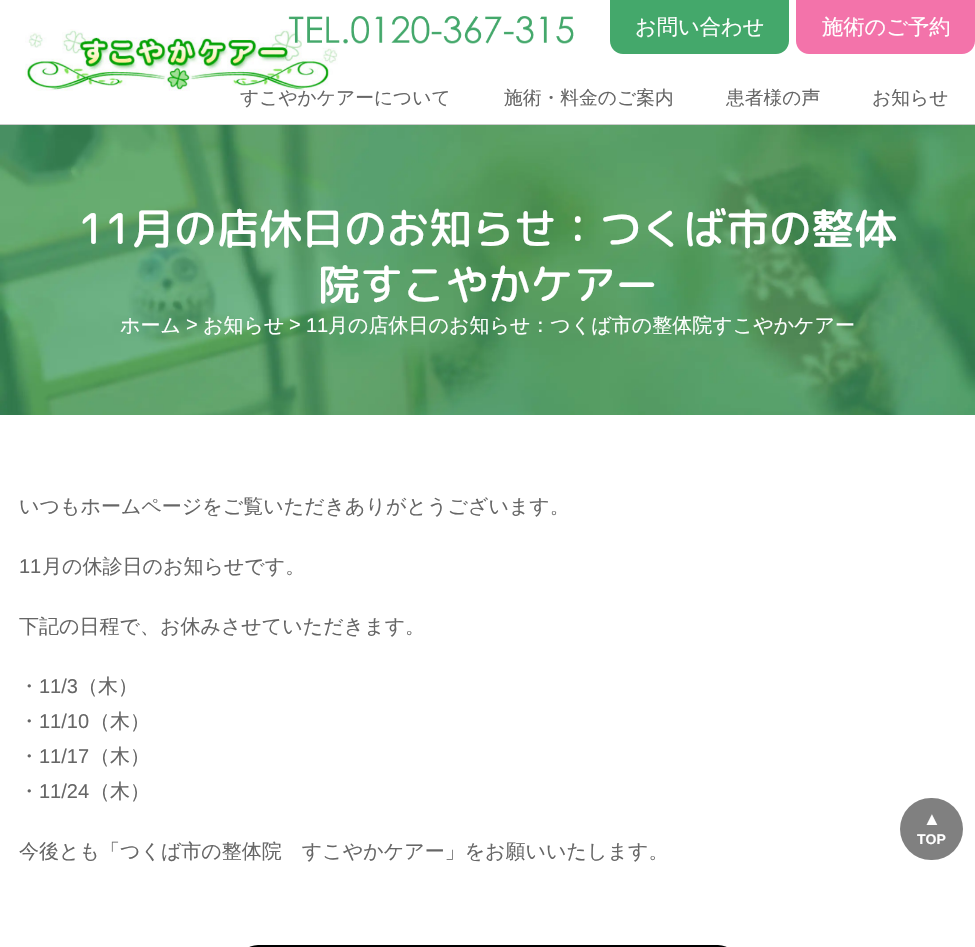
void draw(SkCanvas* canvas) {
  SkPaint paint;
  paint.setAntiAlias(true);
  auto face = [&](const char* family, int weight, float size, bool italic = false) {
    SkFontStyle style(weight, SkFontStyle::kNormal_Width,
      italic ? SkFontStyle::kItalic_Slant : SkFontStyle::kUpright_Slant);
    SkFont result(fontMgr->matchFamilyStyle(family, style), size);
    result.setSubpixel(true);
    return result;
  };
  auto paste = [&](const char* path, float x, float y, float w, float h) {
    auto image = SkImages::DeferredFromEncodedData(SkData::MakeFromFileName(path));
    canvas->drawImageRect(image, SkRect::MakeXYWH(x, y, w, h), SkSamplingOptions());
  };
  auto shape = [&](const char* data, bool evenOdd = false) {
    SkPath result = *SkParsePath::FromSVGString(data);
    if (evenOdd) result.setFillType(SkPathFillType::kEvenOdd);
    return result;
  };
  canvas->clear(0xffffffff);
  paint.setColor(0xffcccccc);
  canvas->drawRect(SkRect::MakeXYWH(0, 124, 975, 1), paint);
  paste("img/1.png", 25, 29, 313, 62);
  paste("img/2.png", 288, 16, 286, 28);
  paint.setColor(0xff44a86b);
  canvas->drawPath(shape("M610 0H789V41C789 48 783 54 776 54H623C616 54 610 48 610 41Z"), paint);
  paint.setColor(0xfff373aa);
  canvas->drawPath(shape("M796 0H975V41C975 48 969 54 962 54H809C802 54 796 48 796 41Z"), paint);
  paste("img/3.png", 0, 125, 975, 290);
  paint.setColor(0xff000000);
  canvas->drawRoundRect(SkRect::MakeXYWH(238, 945, 500, 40), 38, 38, paint);
  paint.setColor(0xff808080);
  canvas->drawRoundRect(SkRect::MakeXYWH(900, 798, 63, 62), 31, 31, paint);
  auto f0 = face("WenQuanYi Zen Hei", 500, 21.25f);
  paint.setColor(0xffffffff);
  canvas->drawString("お問い合わせ", 635, 34, f0, paint);
  canvas->drawString("施術のご予約", 822, 34, f0, paint);
  auto f1 = face("WenQuanYi Zen Hei", 500, 18.75f);
  paint.setColor(0xff666666);
  {
    const struct { const char* s; float x, y; } items[] = {
      {"すこやかケアーについて", 240, 104},
      {"施術・料金のご案内", 504, 104},
      {"患者様の声", 726, 104},
      {"お知らせ", 872, 104},
    };
    for (auto [s, x, y] : items) {
      canvas->drawString(s, x, y, f1, paint);
    }
  }
  auto f2 = face("Rounded Mplus 1c", 500, 42.5f);
  paint.setColor(0xffffffff);
  canvas->drawString("11月の店休日のお知らせ：つくば市の整体", 78, 244, f2, paint);
  canvas->drawString("院すこやかケアー", 318, 300, f2, paint);
  auto f3 = face("WenQuanYi Zen Hei", 500, 20);
  canvas->drawString("ホーム", 120, 332, f3, paint);
  auto f4 = face("Liberation Sans", 400, 20);
  canvas->drawString(">", 186, 331, f4, paint);
  canvas->drawString("お知らせ", 203, 332, f3, paint);
  canvas->drawString(">", 289, 331, f4, paint);
  canvas->drawString("11", 306, 332, f4, paint);
  canvas->drawString("月の店休日のお知らせ：つくば市の整体院すこやかケアー", 328, 332, f3, paint);
  paint.setColor(0xff666666);
  canvas->drawString("いつもホームページをご覧いただきありがとうございます。", 19, 513, f3, paint);
  canvas->drawString("11", 19, 573, f4, paint);
  {
    const struct { const char* s; float x, y; } items[] = {
      {"月の休診日のお知らせです。", 42, 573},
      {"下記の日程で、お休みさせていただきます。", 19, 633},
      {"・", 19, 693},
    };
    for (auto [s, x, y] : items) {
      canvas->drawString(s, x, y, f3, paint);
    }
  }
  canvas->drawString("11/3", 39, 693, f4, paint);
  canvas->drawString("（木）", 78, 693, f3, paint);
  canvas->drawString("・", 19, 728, f3, paint);
  canvas->drawString("11/10", 39, 728, f4, paint);
  canvas->drawString("（木）", 90, 728, f3, paint);
  canvas->drawString("・", 19, 763, f3, paint);
  canvas->drawString("11/17", 39, 763, f4, paint);
  canvas->drawString("（木）", 90, 763, f3, paint);
  canvas->drawString("・", 19, 798, f3, paint);
  canvas->drawString("11/24", 39, 798, f4, paint);
  canvas->drawString("（木）", 90, 798, f3, paint);
  canvas->drawString("今後とも「つくば市の整体院　すこやかケアー」をお願いいたします。", 19, 858, f3, paint);
  auto f5 = face("Liberation Sans", 700, 18);
  paint.setColor(0xffffffff);
  canvas->drawString("▲", 923, 825, f5, paint);
  auto f6 = face("Liberation Sans", 700, 14);
  canvas->drawString("TOP", 917, 844, f6, paint);
}
